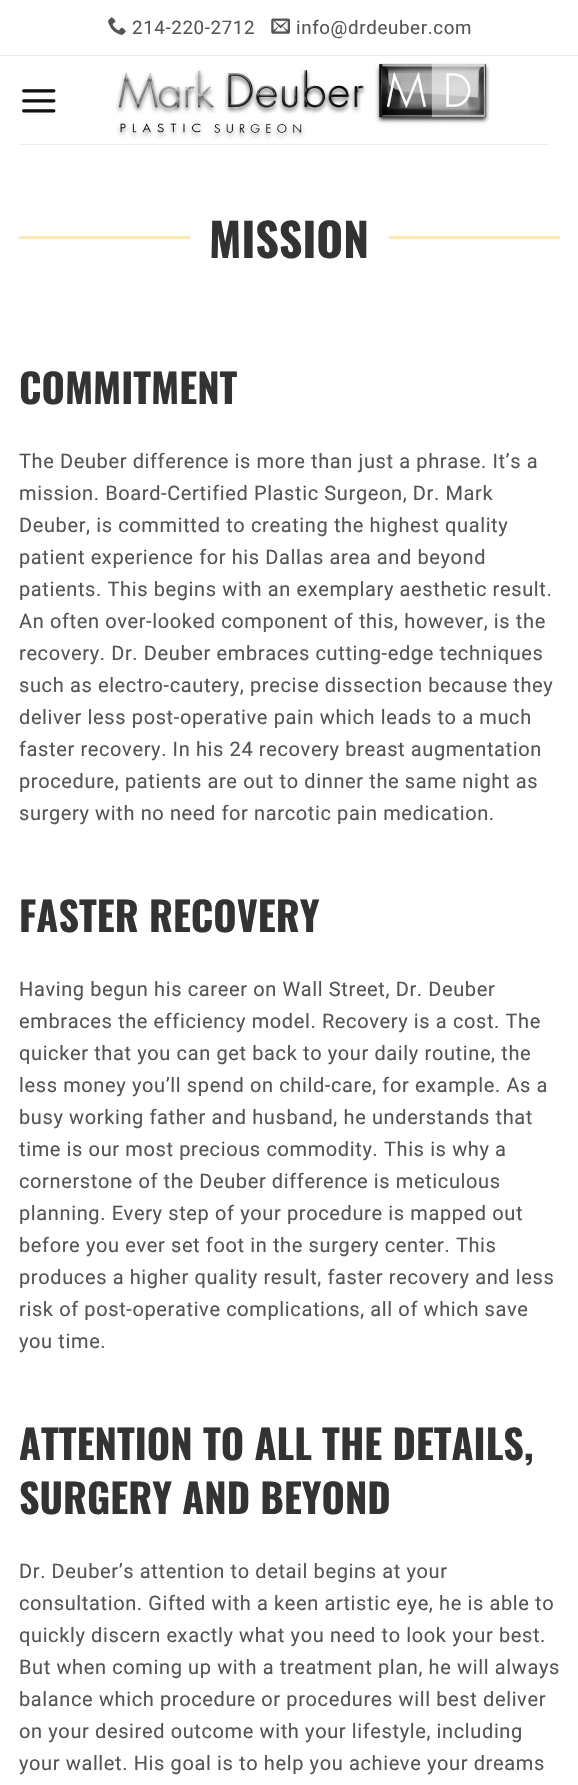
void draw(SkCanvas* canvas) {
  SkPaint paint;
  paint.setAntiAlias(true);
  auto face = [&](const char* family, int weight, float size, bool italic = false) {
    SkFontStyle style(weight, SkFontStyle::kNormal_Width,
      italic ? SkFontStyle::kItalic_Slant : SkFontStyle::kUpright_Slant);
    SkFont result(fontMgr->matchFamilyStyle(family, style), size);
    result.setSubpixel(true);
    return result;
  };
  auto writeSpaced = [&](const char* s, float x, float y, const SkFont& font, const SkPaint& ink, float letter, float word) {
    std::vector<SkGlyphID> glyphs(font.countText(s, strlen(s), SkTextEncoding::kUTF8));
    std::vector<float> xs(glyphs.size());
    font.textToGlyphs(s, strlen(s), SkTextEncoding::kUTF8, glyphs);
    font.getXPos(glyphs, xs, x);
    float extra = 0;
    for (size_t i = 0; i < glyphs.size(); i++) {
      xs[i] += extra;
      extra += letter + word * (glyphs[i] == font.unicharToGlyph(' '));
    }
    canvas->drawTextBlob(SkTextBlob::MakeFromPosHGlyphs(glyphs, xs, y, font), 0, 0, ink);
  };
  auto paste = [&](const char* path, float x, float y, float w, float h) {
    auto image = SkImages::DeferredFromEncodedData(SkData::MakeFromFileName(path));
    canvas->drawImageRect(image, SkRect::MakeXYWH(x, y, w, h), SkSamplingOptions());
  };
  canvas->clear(0xffffffff);
  paint.setColor(0xffeaeae9);
  canvas->drawRect(SkRect::MakeXYWH(0, 55, 578, 1), paint);
  paste("img/1.png", 108, 17, 18, 18);
  paste("img/2.png", 271, 18, 19, 16);
  paste("img/3.png", 22, 89, 34, 24);
  paste("img/4.png", 115, 63, 375, 76);
  {
    const struct { float x, y, w, h; SkColor color; } items[] = {
      {19, 144, 529, 1, 0xffeeeeee},
      {19, 236, 171, 3, 0xfffce8b1},
      {389, 236, 171, 3, 0xfffce8b1},
    };
    for (auto [x, y, w, h, color] : items) {
      paint.setColor(color);
      canvas->drawRect(SkRect::MakeXYWH(x, y, w, h), paint);
    }
  }
  auto f0 = face("Roboto", 400, 18.75f);
  paint.setColor(0xff555555);
  writeSpaced("214-220-2712", 132, 34, f0, paint, 0.62f, 0);
  writeSpaced("info@drdeuber.com", 296, 34, f0, paint, 0.62f, 0);
  auto f1 = face("Oswald", 700, 46);
  paint.setColor(0xff333333);
  canvas->drawString("MISSION", 209, 258, f1, paint);
  auto f2 = face("Oswald", 700, 40);
  canvas->drawString("COMMITMENT", 19, 404, f2, paint);
  auto f3 = face("Roboto", 400, 20);
  paint.setColor(0xff555555);
  {
    const struct { const char* s; float x, y; } items[] = {
      {"The Deuber difference is more than just a phrase. It’s a", 19, 468},
      {"mission. Board-Certified Plastic Surgeon, Dr. Mark", 19, 500},
      {"Deuber, is committed to creating the highest quality", 19, 532},
      {"patient experience for his Dallas area and beyond", 19, 564},
      {"patients. This begins with an exemplary aesthetic result.", 19, 596},
      {"An often over-looked component of this, however, is the", 19, 628},
      {"recovery. Dr. Deuber embraces cutting-edge techniques", 19, 660},
      {"such as electro-cautery, precise dissection because they", 19, 692},
      {"deliver less post-operative pain which leads to a much", 19, 724},
      {"faster recovery. In his 24 recovery breast augmentation", 19, 756},
      {"procedure, patients are out to dinner the same night as", 19, 788},
      {"surgery with no need for narcotic pain medication.", 19, 820},
    };
    for (auto [s, x, y] : items) {
      writeSpaced(s, x, y, f3, paint, 0.62f, 0);
    }
  }
  paint.setColor(0xff333333);
  canvas->drawString("FASTER RECOVERY", 19, 932, f2, paint);
  paint.setColor(0xff555555);
  {
    const struct { const char* s; float x, y; } items[] = {
      {"Having begun his career on Wall Street, Dr. Deuber", 19, 996},
      {"embraces the efficiency model. Recovery is a cost. The", 19, 1028},
      {"quicker that you can get back to your daily routine, the", 19, 1060},
      {"less money you’ll spend on child-care, for example. As a", 19, 1092},
      {"busy working father and husband, he understands that", 19, 1124},
      {"time is our most precious commodity. This is why a", 19, 1156},
      {"cornerstone of the Deuber difference is meticulous", 19, 1188},
      {"planning. Every step of your procedure is mapped out", 19, 1220},
      {"before you ever set foot in the surgery center. This", 19, 1252},
      {"produces a higher quality result, faster recovery and less", 19, 1284},
      {"risk of post-operative complications, all of which save", 19, 1316},
      {"you time.", 19, 1348},
    };
    for (auto [s, x, y] : items) {
      writeSpaced(s, x, y, f3, paint, 0.62f, 0);
    }
  }
  paint.setColor(0xff333333);
  canvas->drawString("ATTENTION TO ALL THE DETAILS,", 19, 1460, f2, paint);
  canvas->drawString("SURGERY AND BEYOND", 19, 1514, f2, paint);
  paint.setColor(0xff555555);
  {
    const struct { const char* s; float x, y; } items[] = {
      {"Dr. Deuber’s attention to detail begins at your", 19, 1578},
      {"consultation. Gifted with a keen artistic eye, he is able to", 19, 1610},
      {"quickly discern exactly what you need to look your best.", 19, 1642},
      {"But when coming up with a treatment plan, he will always", 19, 1674},
      {"balance which procedure or procedures will best deliver", 19, 1706},
      {"on your desired outcome with your lifestyle, including", 19, 1738},
      {"your wallet. His goal is to help you achieve your dreams", 19, 1770},
    };
    for (auto [s, x, y] : items) {
      writeSpaced(s, x, y, f3, paint, 0.62f, 0);
    }
  }
}
